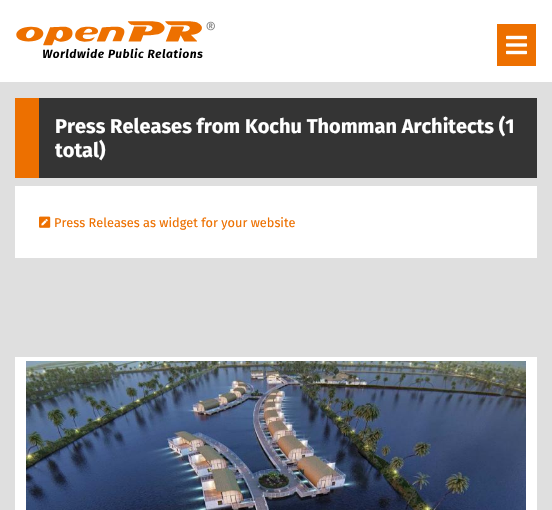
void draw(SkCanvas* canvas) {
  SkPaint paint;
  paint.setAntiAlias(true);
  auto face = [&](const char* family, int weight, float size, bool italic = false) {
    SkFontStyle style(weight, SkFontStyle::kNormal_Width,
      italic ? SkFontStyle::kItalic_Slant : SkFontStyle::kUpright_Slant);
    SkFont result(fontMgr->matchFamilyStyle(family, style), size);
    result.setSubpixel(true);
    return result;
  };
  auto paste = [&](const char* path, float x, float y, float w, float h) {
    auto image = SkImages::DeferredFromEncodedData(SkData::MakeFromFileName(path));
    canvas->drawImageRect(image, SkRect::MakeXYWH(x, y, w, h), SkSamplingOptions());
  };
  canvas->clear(0xffdfdfdf);
  paint.setColor(0xffffffff);
  canvas->drawRect(SkRect::MakeXYWH(0, 0, 552, 82), paint);
  paste("img/1.png", 16, 21, 199, 37);
  paint.setColor(0xffed7000);
  canvas->drawRect(SkRect::MakeXYWH(497, 24, 39, 42), paint);
  paste("img/2.png", 506, 35, 21, 20);
  {
    const struct { float x, y, w, h; SkColor color; } items[] = {
      {39, 98, 498, 80, 0xff343434},
      {15, 98, 24, 80, 0xffed7000},
      {15, 186, 522, 72, 0xffffffff},
    };
    for (auto [x, y, w, h, color] : items) {
      paint.setColor(color);
      canvas->drawRect(SkRect::MakeXYWH(x, y, w, h), paint);
    }
  }
  paste("img/3.png", 39, 216, 12, 12);
  canvas->drawRect(SkRect::MakeXYWH(15, 357, 522, 153), paint);
  paste("img/4.png", 26, 361, 500, 149);
  auto f0 = face("Fira Sans", 700, 20);
  canvas->drawString("Press Releases from Kochu Thomman Architects (1", 55, 133, f0, paint);
  canvas->drawString("total)", 55, 157, f0, paint);
  auto f1 = face("Fira Sans", 400, 12.75f);
  paint.setColor(0xffed7000);
  canvas->drawString("Press Releases as widget for your website", 54, 227, f1, paint);
}
